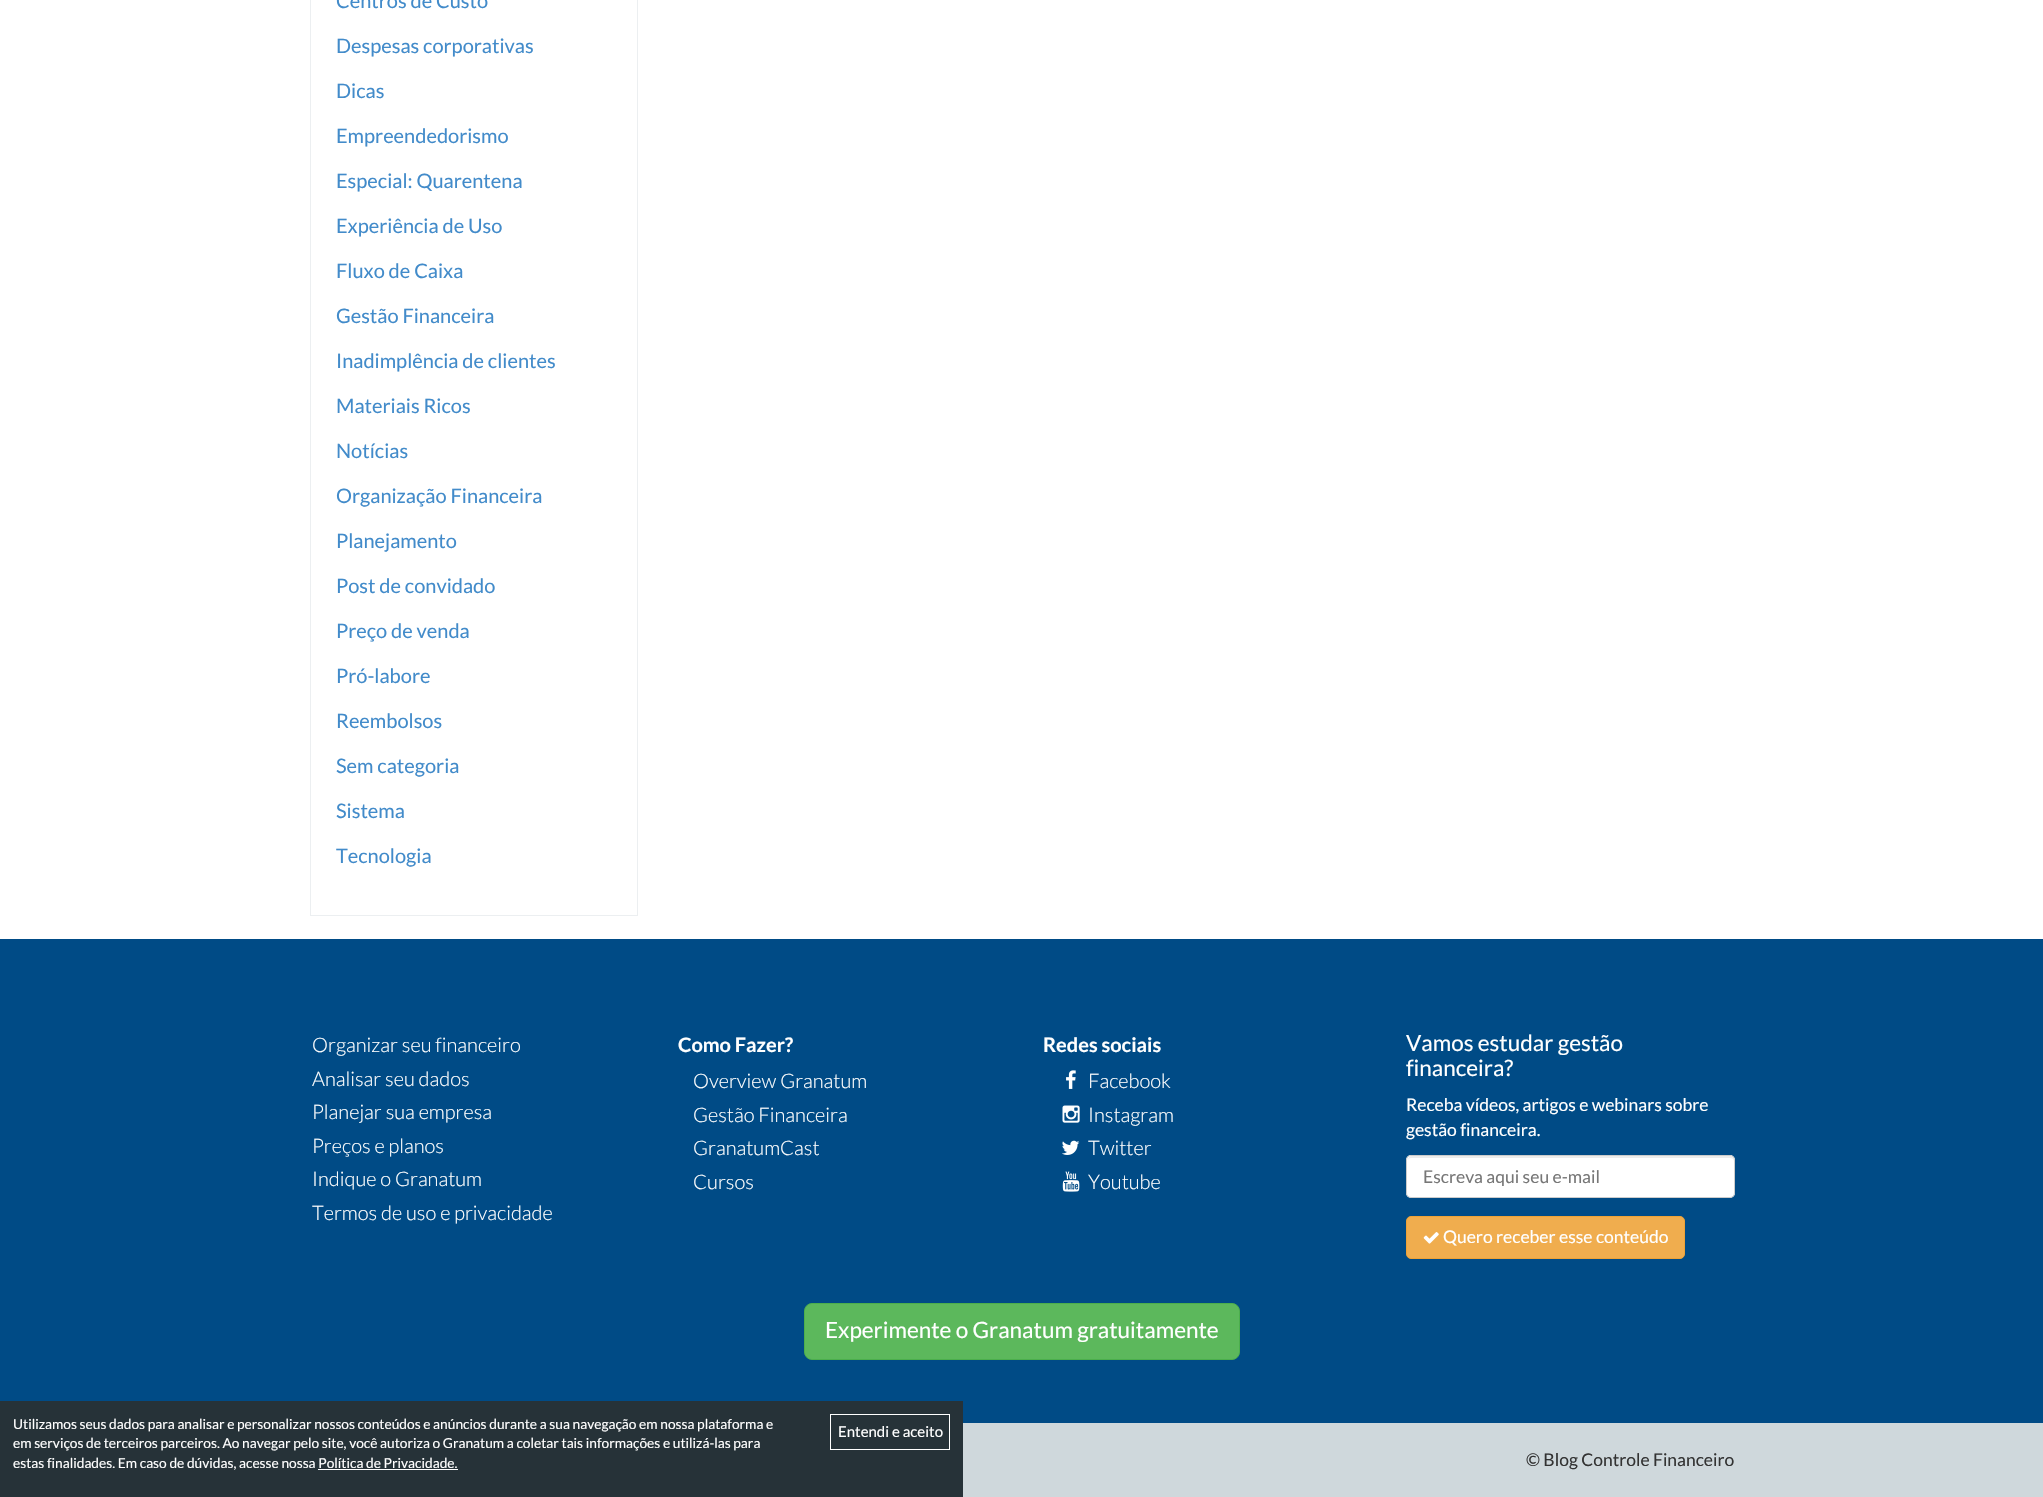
void draw(SkCanvas* canvas) {
  SkPaint paint;
  paint.setAntiAlias(true);
  auto face = [&](const char* family, int weight, float size, bool italic = false) {
    SkFontStyle style(weight, SkFontStyle::kNormal_Width,
      italic ? SkFontStyle::kItalic_Slant : SkFontStyle::kUpright_Slant);
    SkFont result(fontMgr->matchFamilyStyle(family, style), size);
    result.setSubpixel(true);
    return result;
  };
  auto paste = [&](const char* path, float x, float y, float w, float h) {
    auto image = SkImages::DeferredFromEncodedData(SkData::MakeFromFileName(path));
    canvas->drawImageRect(image, SkRect::MakeXYWH(x, y, w, h), SkSamplingOptions());
  };
  auto shape = [&](const char* data, bool evenOdd = false) {
    SkPath result = *SkParsePath::FromSVGString(data);
    if (evenOdd) result.setFillType(SkPathFillType::kEvenOdd);
    return result;
  };
  canvas->clear(0xffffffff);
  paint.setStroke(true);
  paint.setStrokeWidth(1);
  paint.setColor(0xffeceff1);
  canvas->drawRect(SkRect::MakeXYWH(310.5f, -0.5f, 327, 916), paint);
  paint.setStroke(false);
  paint.setColor(0xff004b86);
  canvas->drawRect(SkRect::MakeXYWH(0, 939, 2043, 484), paint);
  paste("img/1.png", 1066, 1070, 10, 19);
  paste("img/2.png", 1062, 1105, 18, 18);
  paste("img/3.png", 1062, 1140, 18, 15);
  paste("img/4.png", 1062, 1171, 18, 21);
  paint.setColor(0xffffffff);
  canvas->drawRoundRect(SkRect::MakeXYWH(1406, 1155, 329, 43), 5, 5, paint);
  paint.setColor(0xffececec);
  canvas->drawPath(shape("M1411 1158H1730C1732 1158 1734 1159 1734 1161V1160C1734 1158 1732 1156 1730 1156H1412C1410 1156 1408 1158 1408 1160V1161C1408 1159 1409 1158 1411 1158Z"), paint);
  paint.setStroke(true);
  paint.setColor(0xffcccccc);
  canvas->drawRoundRect(SkRect::MakeXYWH(1406.5f, 1155.5f, 328, 42), 4.5f, 4.5f, paint);
  paint.setStroke(false);
  paint.setColor(0xfff0ad4e);
  canvas->drawRoundRect(SkRect::MakeXYWH(1406.5f, 1216.5f, 278, 42), 4.5f, 4.5f, paint);
  paint.setStroke(true);
  paint.setColor(0xffeea236);
  canvas->drawRoundRect(SkRect::MakeXYWH(1406.5f, 1216.5f, 278, 42), 4.5f, 4.5f, paint);
  paste("img/5.png", 1423, 1232, 16, 12);
  paint.setStroke(false);
  paint.setColor(0xff5cb85c);
  canvas->drawRoundRect(SkRect::MakeXYWH(804.5f, 1303.5f, 435, 56), 7.5f, 7.5f, paint);
  paint.setStroke(true);
  paint.setColor(0xff4cae4c);
  canvas->drawRoundRect(SkRect::MakeXYWH(804.5f, 1303.5f, 435, 56), 7.5f, 7.5f, paint);
  paint.setStroke(false);
  paint.setColor(0xff263238);
  canvas->drawRect(SkRect::MakeXYWH(0, 1401, 963, 96), paint);
  paint.setColor(0xffffffff);
  canvas->drawRect(SkRect::MakeXYWH(318, 1469, 140, 1), paint);
  paint.setStroke(true);
  canvas->drawRect(SkRect::MakeXYWH(830.5f, 1414.5f, 119, 35), paint);
  paint.setStroke(false);
  paint.setColor(0xffcfd8dc);
  canvas->drawRect(SkRect::MakeXYWH(963, 1423, 1080, 74), paint);
  auto f0 = face("Lato", 400, 20);
  paint.setColor(0xff428bca);
  {
    const struct { const char* s; float x, y; } items[] = {
      {"Centros de Custo", 336, 8},
      {"Despesas corporativas", 336, 53},
      {"Dicas", 336, 98},
      {"Empreendedorismo", 336, 143},
      {"Especial: Quarentena", 336, 188},
      {"Experiência de Uso", 336, 233},
      {"Fluxo de Caixa", 336, 278},
      {"Gestão Financeira", 336, 323},
      {"Inadimplência de clientes", 336, 368},
      {"Materiais Ricos", 336, 413},
      {"Notícias", 336, 458},
      {"Organização Financeira", 336, 503},
      {"Planejamento", 336, 548},
      {"Post de convidado", 336, 593},
      {"Preço de venda", 336, 638},
      {"Pró-labore", 336, 683},
      {"Reembolsos", 336, 728},
      {"Sem categoria", 336, 773},
      {"Sistema", 336, 818},
      {"Tecnologia", 336, 863},
    };
    for (auto [s, x, y] : items) {
      canvas->drawString(s, x, y, f0, paint);
    }
  }
  auto f1 = face("Lato", 300, 20);
  paint.setColor(0xffffffff);
  {
    const struct { const char* s; float x, y; } items[] = {
      {"Organizar seu financeiro", 312, 1052},
      {"Analisar seu dados", 312, 1086},
      {"Planejar sua empresa", 312, 1119},
      {"Preços e planos", 312, 1153},
      {"Indique o Granatum", 312, 1186},
      {"Termos de uso e privacidade", 312, 1220},
    };
    for (auto [s, x, y] : items) {
      canvas->drawString(s, x, y, f1, paint);
    }
  }
  auto f2 = face("Lato", 700, 20);
  canvas->drawString("Como Fazer?", 678, 1052, f2, paint);
  {
    const struct { const char* s; float x, y; } items[] = {
      {"Overview Granatum", 693, 1088},
      {"Gestão Financeira", 693, 1122},
      {"GranatumCast", 693, 1155},
      {"Cursos", 693, 1189},
    };
    for (auto [s, x, y] : items) {
      canvas->drawString(s, x, y, f1, paint);
    }
  }
  canvas->drawString("Redes sociais", 1043, 1052, f2, paint);
  {
    const struct { const char* s; float x, y; } items[] = {
      {"Facebook", 1088, 1088},
      {"Instagram", 1088, 1122},
      {"Twitter", 1088, 1155},
      {"Youtube", 1088, 1189},
    };
    for (auto [s, x, y] : items) {
      canvas->drawString(s, x, y, f1, paint);
    }
  }
  auto f3 = face("Lato", 400, 22.5f);
  canvas->drawString("Vamos estudar gestão", 1406, 1051, f3, paint);
  canvas->drawString("financeira?", 1406, 1076, f3, paint);
  auto f4 = face("Lato", 400, 17.5f);
  canvas->drawString("Receba vídeos, artigos e webinars sobre", 1406, 1111, f4, paint);
  canvas->drawString("gestão financeira.", 1406, 1136, f4, paint);
  paint.setColor(0xff777777);
  canvas->drawString("Escreva aqui seu e-mail", 1423, 1183, f4, paint);
  paint.setColor(0xffffffff);
  canvas->drawString("Quero receber esse conteúdo", 1443, 1243, f4, paint);
  canvas->drawString("Experimente o Granatum gratuitamente", 825, 1338, f3, paint);
  auto f5 = face("Lato", 400, 13.75f);
  {
    const struct { const char* s; float x, y; } items[] = {
      {"Utilizamos seus dados para analisar e personalizar nossos conteúdos e anúncios durante a sua navegação em nossa plataforma e", 13, 1429},
      {"em serviços de terceiros parceiros. Ao navegar pelo site, você autoriza o Granatum a coletar tais informações e utilizá-las para", 13, 1448},
      {"estas finalidades. Em caso de dúvidas, acesse nossa Política de Privacidade.", 13, 1468},
    };
    for (auto [s, x, y] : items) {
      canvas->drawString(s, x, y, f5, paint);
    }
  }
  auto f6 = face("Lato", 400, 15);
  canvas->drawString("Entendi e aceito", 838, 1437, f6, paint);
  paint.setColor(0xff333333);
  canvas->drawString("© Blog Controle Financeiro", 1526, 1466, f4, paint);
}
